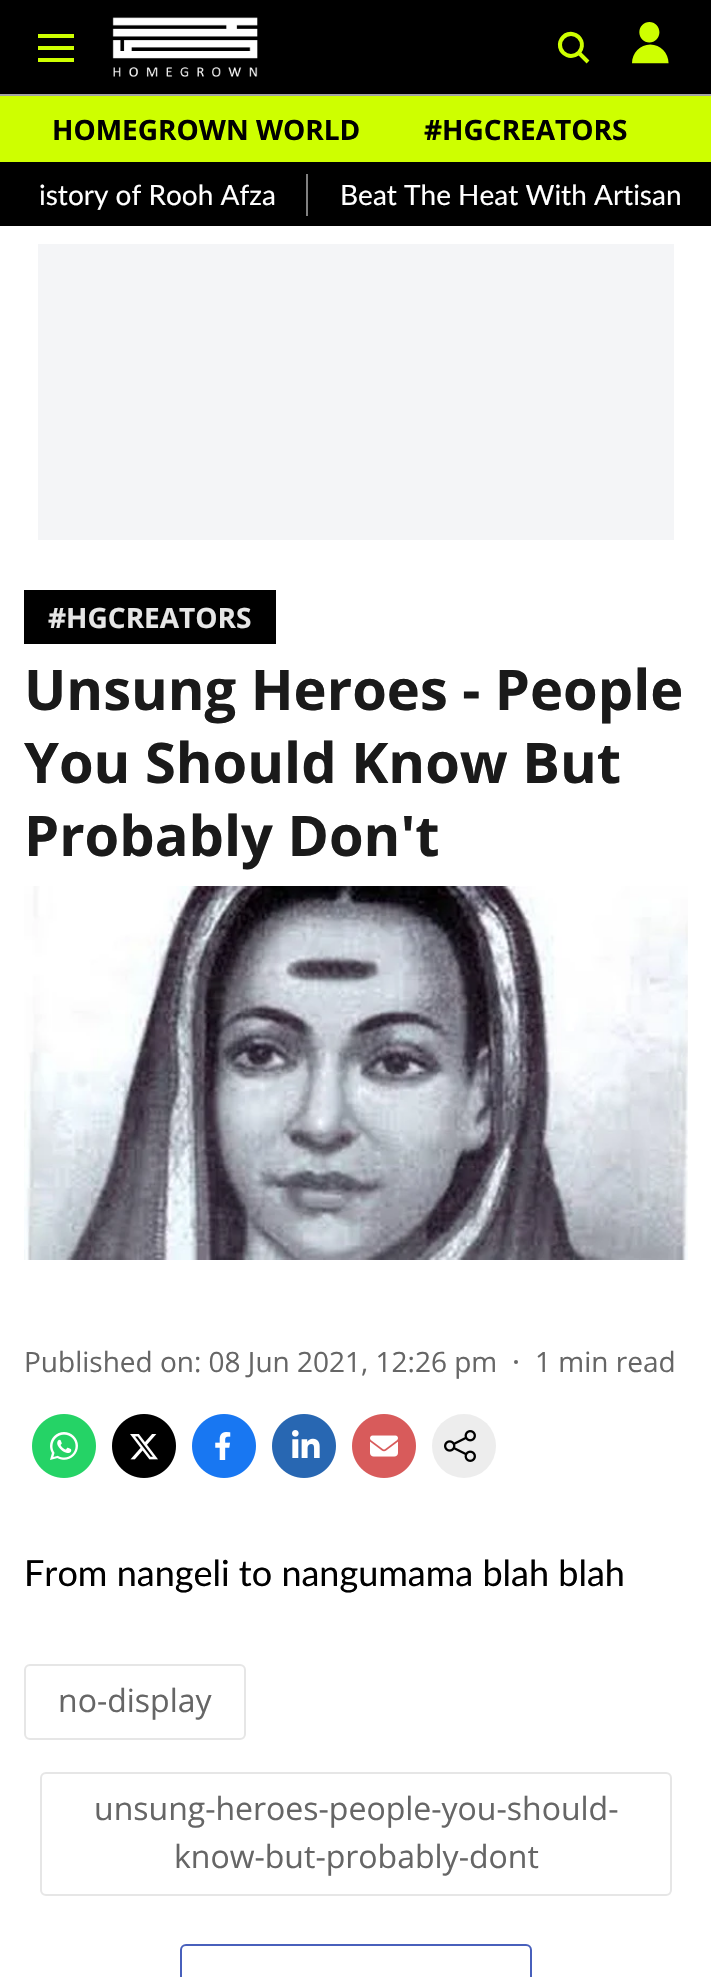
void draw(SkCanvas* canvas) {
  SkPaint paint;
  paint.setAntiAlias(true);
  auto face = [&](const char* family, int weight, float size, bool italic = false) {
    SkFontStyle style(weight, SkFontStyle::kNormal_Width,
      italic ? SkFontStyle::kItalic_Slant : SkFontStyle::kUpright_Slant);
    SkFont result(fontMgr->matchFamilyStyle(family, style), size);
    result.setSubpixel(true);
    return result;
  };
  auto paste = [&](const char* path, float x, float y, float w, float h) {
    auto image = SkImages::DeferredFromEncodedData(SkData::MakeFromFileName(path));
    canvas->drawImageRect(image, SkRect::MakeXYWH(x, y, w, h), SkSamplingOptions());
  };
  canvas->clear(0xffffffff);
  paint.setColor(0xff000000);
  canvas->drawRect(SkRect::MakeXYWH(0, 0, 711, 94), paint);
  paint.setColor(0xffa4a4a4);
  canvas->drawRect(SkRect::MakeXYWH(0, 94, 711, 2), paint);
  paste("img/1.png", 38, 34, 36, 28);
  paste("img/2.png", 112, 17, 146, 60);
  paste("img/3.png", 557, 31, 33, 33);
  paste("img/4.png", 632, 22, 37, 42);
  {
    const struct { float x, y, w, h; SkColor color; } items[] = {
      {0, 96, 711, 66, 0xffceff00},
      {0, 162, 711, 64, 0xff000000},
      {306, 174, 2, 42, 0xff808080},
      {38, 244, 636, 296, 0xfff4f5f7},
      {24, 590, 252, 54, 0xff000000},
    };
    for (auto [x, y, w, h, color] : items) {
      paint.setColor(color);
      canvas->drawRect(SkRect::MakeXYWH(x, y, w, h), paint);
    }
  }
  paste("img/5.png", 24, 886, 664, 374);
  paint.setColor(0xff666666);
  canvas->drawCircle(516, 1362, 2, paint);
  paste("img/6.png", 32, 1414, 64, 64);
  paste("img/7.png", 112, 1414, 64, 64);
  paste("img/8.png", 192, 1414, 64, 64);
  paste("img/9.png", 272, 1414, 64, 64);
  paste("img/10.png", 352, 1414, 64, 64);
  paint.setColor(0xffededed);
  canvas->drawCircle(464, 1446, 32, paint);
  paste("img/11.png", 444, 1430, 32, 32);
  paint.setStroke(true);
  paint.setStrokeWidth(2);
  paint.setColor(0xffe6e6e6);
  canvas->drawRoundRect(SkRect::MakeXYWH(25, 1665, 220, 74), 5, 5, paint);
  canvas->drawRoundRect(SkRect::MakeXYWH(41, 1773, 630, 122), 5, 5, paint);
  paint.setColor(0xff4860bc);
  canvas->drawRoundRect(SkRect::MakeXYWH(181, 1945, 350, 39), 5, 5, paint);
  auto f0 = face("Open Sans", 700, 28);
  paint.setStroke(false);
  paint.setColor(0xff000000);
  canvas->drawString("HOMEGROWN WORLD", 52, 140, f0, paint);
  canvas->drawString("#HGCREATORS", 424, 140, f0, paint);
  auto f1 = face("Lato", 400, 28);
  paint.setColor(0xffffffff);
  canvas->drawString("istory of Rooh Afza", 39, 205, f1, paint);
  canvas->drawString("Beat The Heat With Artisan", 340, 205, f1, paint);
  paint.setColor(0xffe6e6e6);
  canvas->drawString("#HGCREATORS", 48, 628, f0, paint);
  auto f2 = face("Open Sans", 700, 56);
  paint.setColor(0xff1a1a1a);
  {
    const struct { const char* s; float x, y; } items[] = {
      {"Unsung Heroes - People", 24, 710},
      {"You Should Know But", 24, 783},
      {"Probably Don't", 24, 856},
    };
    for (auto [s, x, y] : items) {
      canvas->drawString(s, x, y, f2, paint);
    }
  }
  auto f3 = face("Open Sans", 400, 28);
  paint.setColor(0xff666666);
  canvas->drawString("Published on: 08 Jun 2021, 12:26 pm", 24, 1372, f3, paint);
  canvas->drawString("1 min read", 535, 1372, f3, paint);
  auto f4 = face("Lato", 400, 36);
  paint.setColor(0xff000000);
  canvas->drawString("From nangeli to nangumama blah blah", 24, 1586, f4, paint);
  auto f5 = face("Open Sans", 400, 32);
  paint.setColor(0xff666666);
  {
    const struct { const char* s; float x, y; } items[] = {
      {"no-display", 58, 1712},
      {"unsung-heroes-people-you-should-", 94, 1820},
      {"know-but-probably-dont", 174, 1868},
    };
    for (auto [s, x, y] : items) {
      canvas->drawString(s, x, y, f5, paint);
    }
  }
}
